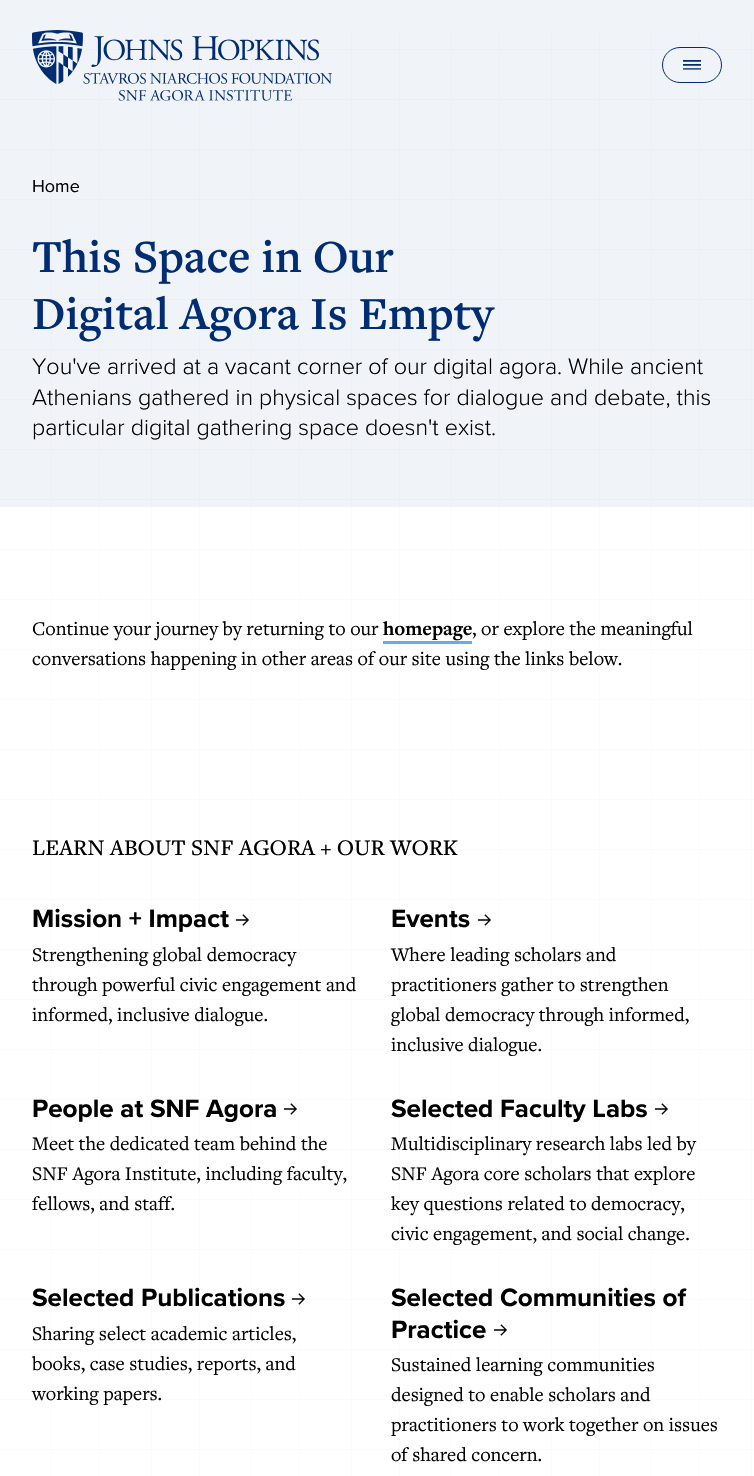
void draw(SkCanvas* canvas) {
  SkPaint paint;
  paint.setAntiAlias(true);
  auto face = [&](const char* family, int weight, float size, bool italic = false) {
    SkFontStyle style(weight, SkFontStyle::kNormal_Width,
      italic ? SkFontStyle::kItalic_Slant : SkFontStyle::kUpright_Slant);
    SkFont result(fontMgr->matchFamilyStyle(family, style), size);
    result.setSubpixel(true);
    return result;
  };
  auto paste = [&](const char* path, float x, float y, float w, float h) {
    auto image = SkImages::DeferredFromEncodedData(SkData::MakeFromFileName(path));
    canvas->drawImageRect(image, SkRect::MakeXYWH(x, y, w, h), SkSamplingOptions());
  };
  canvas->clear(0xffffffff);
  paint.setColor(0xfff0f3f7);
  canvas->drawRect(SkRect::MakeXYWH(0, 0, 754, 507), paint);
  paste("img/2.png", 32, 30, 300, 71);
  paint.setStroke(true);
  paint.setStrokeWidth(1);
  paint.setColor(0xff002d72);
  canvas->drawRoundRect(SkRect::MakeXYWH(662.5f, 47.5f, 59, 35), 17.5f, 17.5f, paint);
  paste("img/3.png", 683, 60, 18, 10);
  paint.setStroke(false);
  paint.setColor(0xff68ace5);
  canvas->drawRect(SkRect::MakeXYWH(383, 641, 89, 3), paint);
  paste("img/4.png", 235, 914, 14, 12);
  paste("img/4.png", 477, 914, 14, 12);
  paste("img/4.png", 283, 1103, 14, 12);
  paste("img/4.png", 654, 1103, 14, 12);
  paste("img/4.png", 291, 1293, 14, 12);
  paste("img/4.png", 493, 1324, 14, 12);
  auto f0 = face("Proxima Nova", 400, 18);
  paint.setColor(0xff000000);
  canvas->drawString("Home", 32, 192, f0, paint);
  auto f1 = face("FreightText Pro", 600, 47.75f);
  paint.setColor(0xff002d72);
  canvas->drawString("This Space in Our", 32, 272, f1, paint);
  canvas->drawString("Digital Agora Is Empty", 32, 329, f1, paint);
  auto f2 = face("Proxima Nova", 300, 23.25f);
  paint.setColor(0xff000000);
  {
    const struct { const char* s; float x, y; } items[] = {
      {"You've arrived at a vacant corner of our digital agora. While ancient", 32, 374},
      {"Athenians gathered in physical spaces for dialogue and debate, this", 32, 405},
      {"particular digital gathering space doesn't exist.", 32, 435},
    };
    for (auto [s, x, y] : items) {
      canvas->drawString(s, x, y, f2, paint);
    }
  }
  auto f3 = face("FreightText Pro", 400, 20);
  canvas->drawString("Continue your journey by returning to our", 32, 635, f3, paint);
  auto f4 = face("FreightText Pro", 700, 20);
  canvas->drawString("homepage", 383, 635, f4, paint);
  canvas->drawString(", or explore the meaningful", 472, 635, f3, paint);
  canvas->drawString("conversations happening in other areas of our site using the links below.", 32, 665, f3, paint);
  auto f5 = face("FreightText Pro", 500, 23.25f);
  canvas->drawString("LEARN ABOUT SNF AGORA + OUR WORK", 32, 855, f5, paint);
  auto f6 = face("Proxima Nova", 700, 26);
  canvas->drawString("Mission + Impact", 32, 927, f6, paint);
  {
    const struct { const char* s; float x, y; } items[] = {
      {"Strengthening global democracy", 32, 961},
      {"through powerful civic engagement and", 32, 991},
      {"informed, inclusive dialogue.", 32, 1021},
    };
    for (auto [s, x, y] : items) {
      canvas->drawString(s, x, y, f3, paint);
    }
  }
  canvas->drawString("Events", 391, 927, f6, paint);
  {
    const struct { const char* s; float x, y; } items[] = {
      {"Where leading scholars and", 391, 961},
      {"practitioners gather to strengthen", 391, 991},
      {"global democracy through informed,", 391, 1021},
      {"inclusive dialogue.", 391, 1051},
    };
    for (auto [s, x, y] : items) {
      canvas->drawString(s, x, y, f3, paint);
    }
  }
  canvas->drawString("People at SNF Agora", 32, 1117, f6, paint);
  {
    const struct { const char* s; float x, y; } items[] = {
      {"Meet the dedicated team behind the", 32, 1150},
      {"SNF Agora Institute, including faculty,", 32, 1180},
      {"fellows, and staff.", 32, 1210},
    };
    for (auto [s, x, y] : items) {
      canvas->drawString(s, x, y, f3, paint);
    }
  }
  canvas->drawString("Selected Faculty Labs", 391, 1117, f6, paint);
  {
    const struct { const char* s; float x, y; } items[] = {
      {"Multidisciplinary research labs led by", 391, 1150},
      {"SNF Agora core scholars that explore", 391, 1180},
      {"key questions related to democracy,", 391, 1210},
      {"civic engagement, and social change.", 391, 1240},
    };
    for (auto [s, x, y] : items) {
      canvas->drawString(s, x, y, f3, paint);
    }
  }
  canvas->drawString("Selected Publications", 32, 1306, f6, paint);
  {
    const struct { const char* s; float x, y; } items[] = {
      {"Sharing select academic articles,", 32, 1340},
      {"books, case studies, reports, and", 32, 1370},
      {"working papers.", 32, 1400},
    };
    for (auto [s, x, y] : items) {
      canvas->drawString(s, x, y, f3, paint);
    }
  }
  canvas->drawString("Selected Communities of", 391, 1306, f6, paint);
  canvas->drawString("Practice", 391, 1338, f6, paint);
  {
    const struct { const char* s; float x, y; } items[] = {
      {"Sustained learning communities", 391, 1371},
      {"designed to enable scholars and", 391, 1401},
      {"practitioners to work together on issues", 391, 1431},
      {"of shared concern.", 391, 1461},
    };
    for (auto [s, x, y] : items) {
      canvas->drawString(s, x, y, f3, paint);
    }
  }
  paste("img/1.png", 0, 30, 754, 1446);
}
